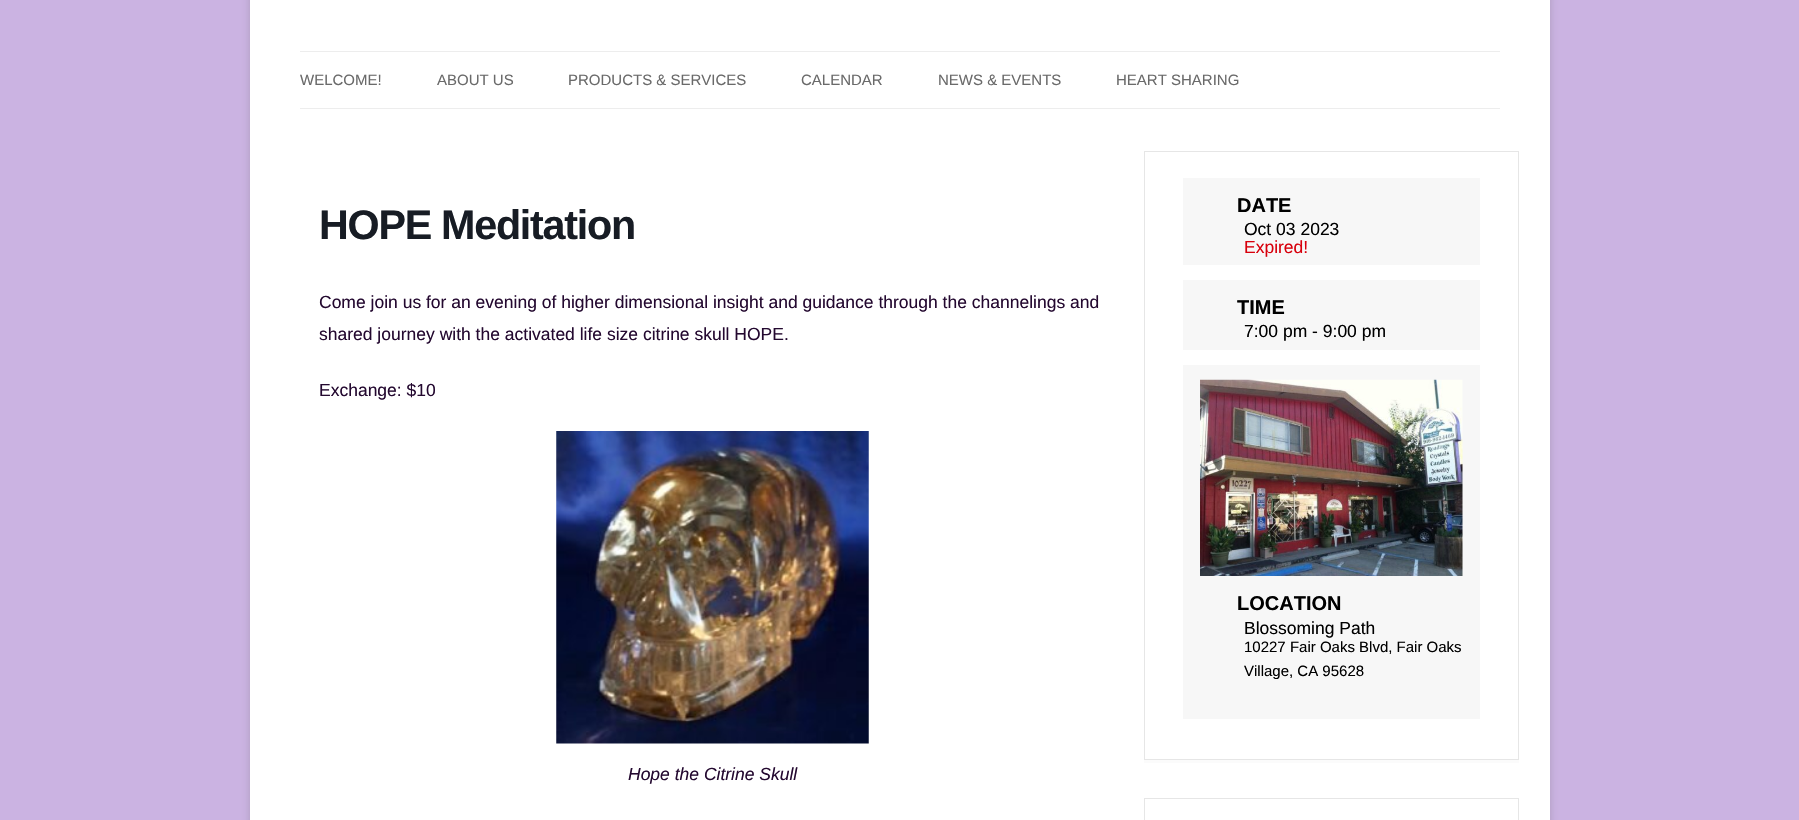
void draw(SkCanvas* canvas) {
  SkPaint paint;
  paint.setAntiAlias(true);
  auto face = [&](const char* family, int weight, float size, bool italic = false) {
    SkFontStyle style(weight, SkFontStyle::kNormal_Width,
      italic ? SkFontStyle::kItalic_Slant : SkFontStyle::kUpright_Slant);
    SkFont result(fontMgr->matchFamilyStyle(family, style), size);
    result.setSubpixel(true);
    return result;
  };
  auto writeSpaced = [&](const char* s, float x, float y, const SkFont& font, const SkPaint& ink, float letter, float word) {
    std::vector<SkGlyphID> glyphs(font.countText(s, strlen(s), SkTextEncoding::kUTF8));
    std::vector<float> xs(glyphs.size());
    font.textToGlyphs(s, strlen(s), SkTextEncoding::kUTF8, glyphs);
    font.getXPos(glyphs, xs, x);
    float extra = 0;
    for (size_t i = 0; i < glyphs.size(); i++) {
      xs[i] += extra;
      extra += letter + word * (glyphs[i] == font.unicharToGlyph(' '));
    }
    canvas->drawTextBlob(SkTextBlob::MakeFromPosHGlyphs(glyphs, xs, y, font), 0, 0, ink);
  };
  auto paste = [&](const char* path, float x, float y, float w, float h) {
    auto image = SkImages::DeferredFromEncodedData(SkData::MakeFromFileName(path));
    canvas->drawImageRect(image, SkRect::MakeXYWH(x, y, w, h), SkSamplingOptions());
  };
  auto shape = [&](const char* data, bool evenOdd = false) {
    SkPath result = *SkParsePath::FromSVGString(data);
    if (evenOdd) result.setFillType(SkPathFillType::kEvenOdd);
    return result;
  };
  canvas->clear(0xffcbb3e2);
  paint.setColor(0x4d646464);
  paint.setMaskFilter(SkMaskFilter::MakeBlur(kNormal_SkBlurStyle, 4));
  canvas->drawRect(SkRect::MakeXYWH(250, -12, 1300, 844), paint);
  paint.setMaskFilter(nullptr);
  {
    const struct { float x, y, w, h; SkColor color; } items[] = {
      {250, 0, 1300, 820, 0xffffffff},
      {300, 51, 1200, 1, 0xffededed},
      {300, 108, 1200, 1, 0xffededed},
    };
    for (auto [x, y, w, h, color] : items) {
      paint.setColor(color);
      canvas->drawRect(SkRect::MakeXYWH(x, y, w, h), paint);
    }
  }
  paste("img/1.png", 556, 431, 313, 313);
  paint.setColor(0xfffbfbfb);
  canvas->drawPath(shape("M1144 760V763H1519V154V760Z"), paint);
  paint.setStroke(true);
  paint.setStrokeWidth(1);
  paint.setColor(0xffe6e6e6);
  canvas->drawRect(SkRect::MakeXYWH(1144.5f, 151.5f, 374, 608), paint);
  paint.setStroke(false);
  {
    const struct { float x, y, w, h; SkColor color; } items[] = {
      {1183, 178, 297, 87, 0xfff7f7f7},
      {1183, 280, 297, 70, 0xfff7f7f7},
      {1183, 365, 297, 354, 0xfff7f7f7},
    };
    for (auto [x, y, w, h, color] : items) {
      paint.setColor(color);
      canvas->drawRect(SkRect::MakeXYWH(x, y, w, h), paint);
    }
  }
  paste("img/2.png", 1200, 379, 263, 197);
  paint.setStroke(true);
  paint.setColor(0xffe6e6e6);
  canvas->drawRect(SkRect::MakeXYWH(1144.5f, 798.5f, 374, 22), paint);
  auto f0 = face("Liberation Sans", 400, 15);
  paint.setStroke(false);
  paint.setColor(0xff6a6a6a);
  {
    const struct { const char* s; float x, y; } items[] = {
      {"WELCOME!", 300, 85},
      {"ABOUT US", 437, 85},
      {"PRODUCTS & SERVICES", 568, 85},
      {"CALENDAR", 801, 85},
      {"NEWS & EVENTS", 938, 85},
      {"HEART SHARING", 1116, 85},
    };
    for (auto [s, x, y] : items) {
      canvas->drawString(s, x, y, f0, paint);
    }
  }
  auto f1 = face("Liberation Sans", 700, 41.25f);
  paint.setColor(0xff171c24);
  writeSpaced("HOPE Meditation", 319, 239, f1, paint, -1.25f, 0);
  auto f2 = face("Liberation Sans", 400, 17.5f);
  paint.setColor(0xff240930);
  {
    const struct { const char* s; float x, y; } items[] = {
      {"Come join us for an evening of higher dimensional insight and guidance through the channelings and", 319, 308},
      {"shared journey with the activated life size citrine skull HOPE.", 319, 340},
      {"Exchange: $10", 319, 396},
    };
    for (auto [s, x, y] : items) {
      canvas->drawString(s, x, y, f2, paint);
    }
  }
  auto f3 = face("Liberation Sans", 400, 17.5f, true);
  canvas->drawString("Hope the Citrine Skull", 628, 780, f3, paint);
  auto f4 = face("Liberation Sans", 700, 20);
  paint.setColor(0xff000000);
  canvas->drawString("DATE", 1237, 212, f4, paint);
  canvas->drawString("Oct 03 2023", 1244, 235, f2, paint);
  paint.setColor(0xffd8000c);
  canvas->drawString("Expired!", 1244, 253, f2, paint);
  paint.setColor(0xff000000);
  canvas->drawString("TIME", 1237, 314, f4, paint);
  canvas->drawString("7:00 pm - 9:00 pm", 1244, 337, f2, paint);
  canvas->drawString("LOCATION", 1237, 610, f4, paint);
  canvas->drawString("Blossoming Path", 1244, 634, f2, paint);
  canvas->drawString("10227 Fair Oaks Blvd, Fair Oaks", 1244, 652, f0, paint);
  canvas->drawString("Village, CA 95628", 1244, 676, f0, paint);
}
